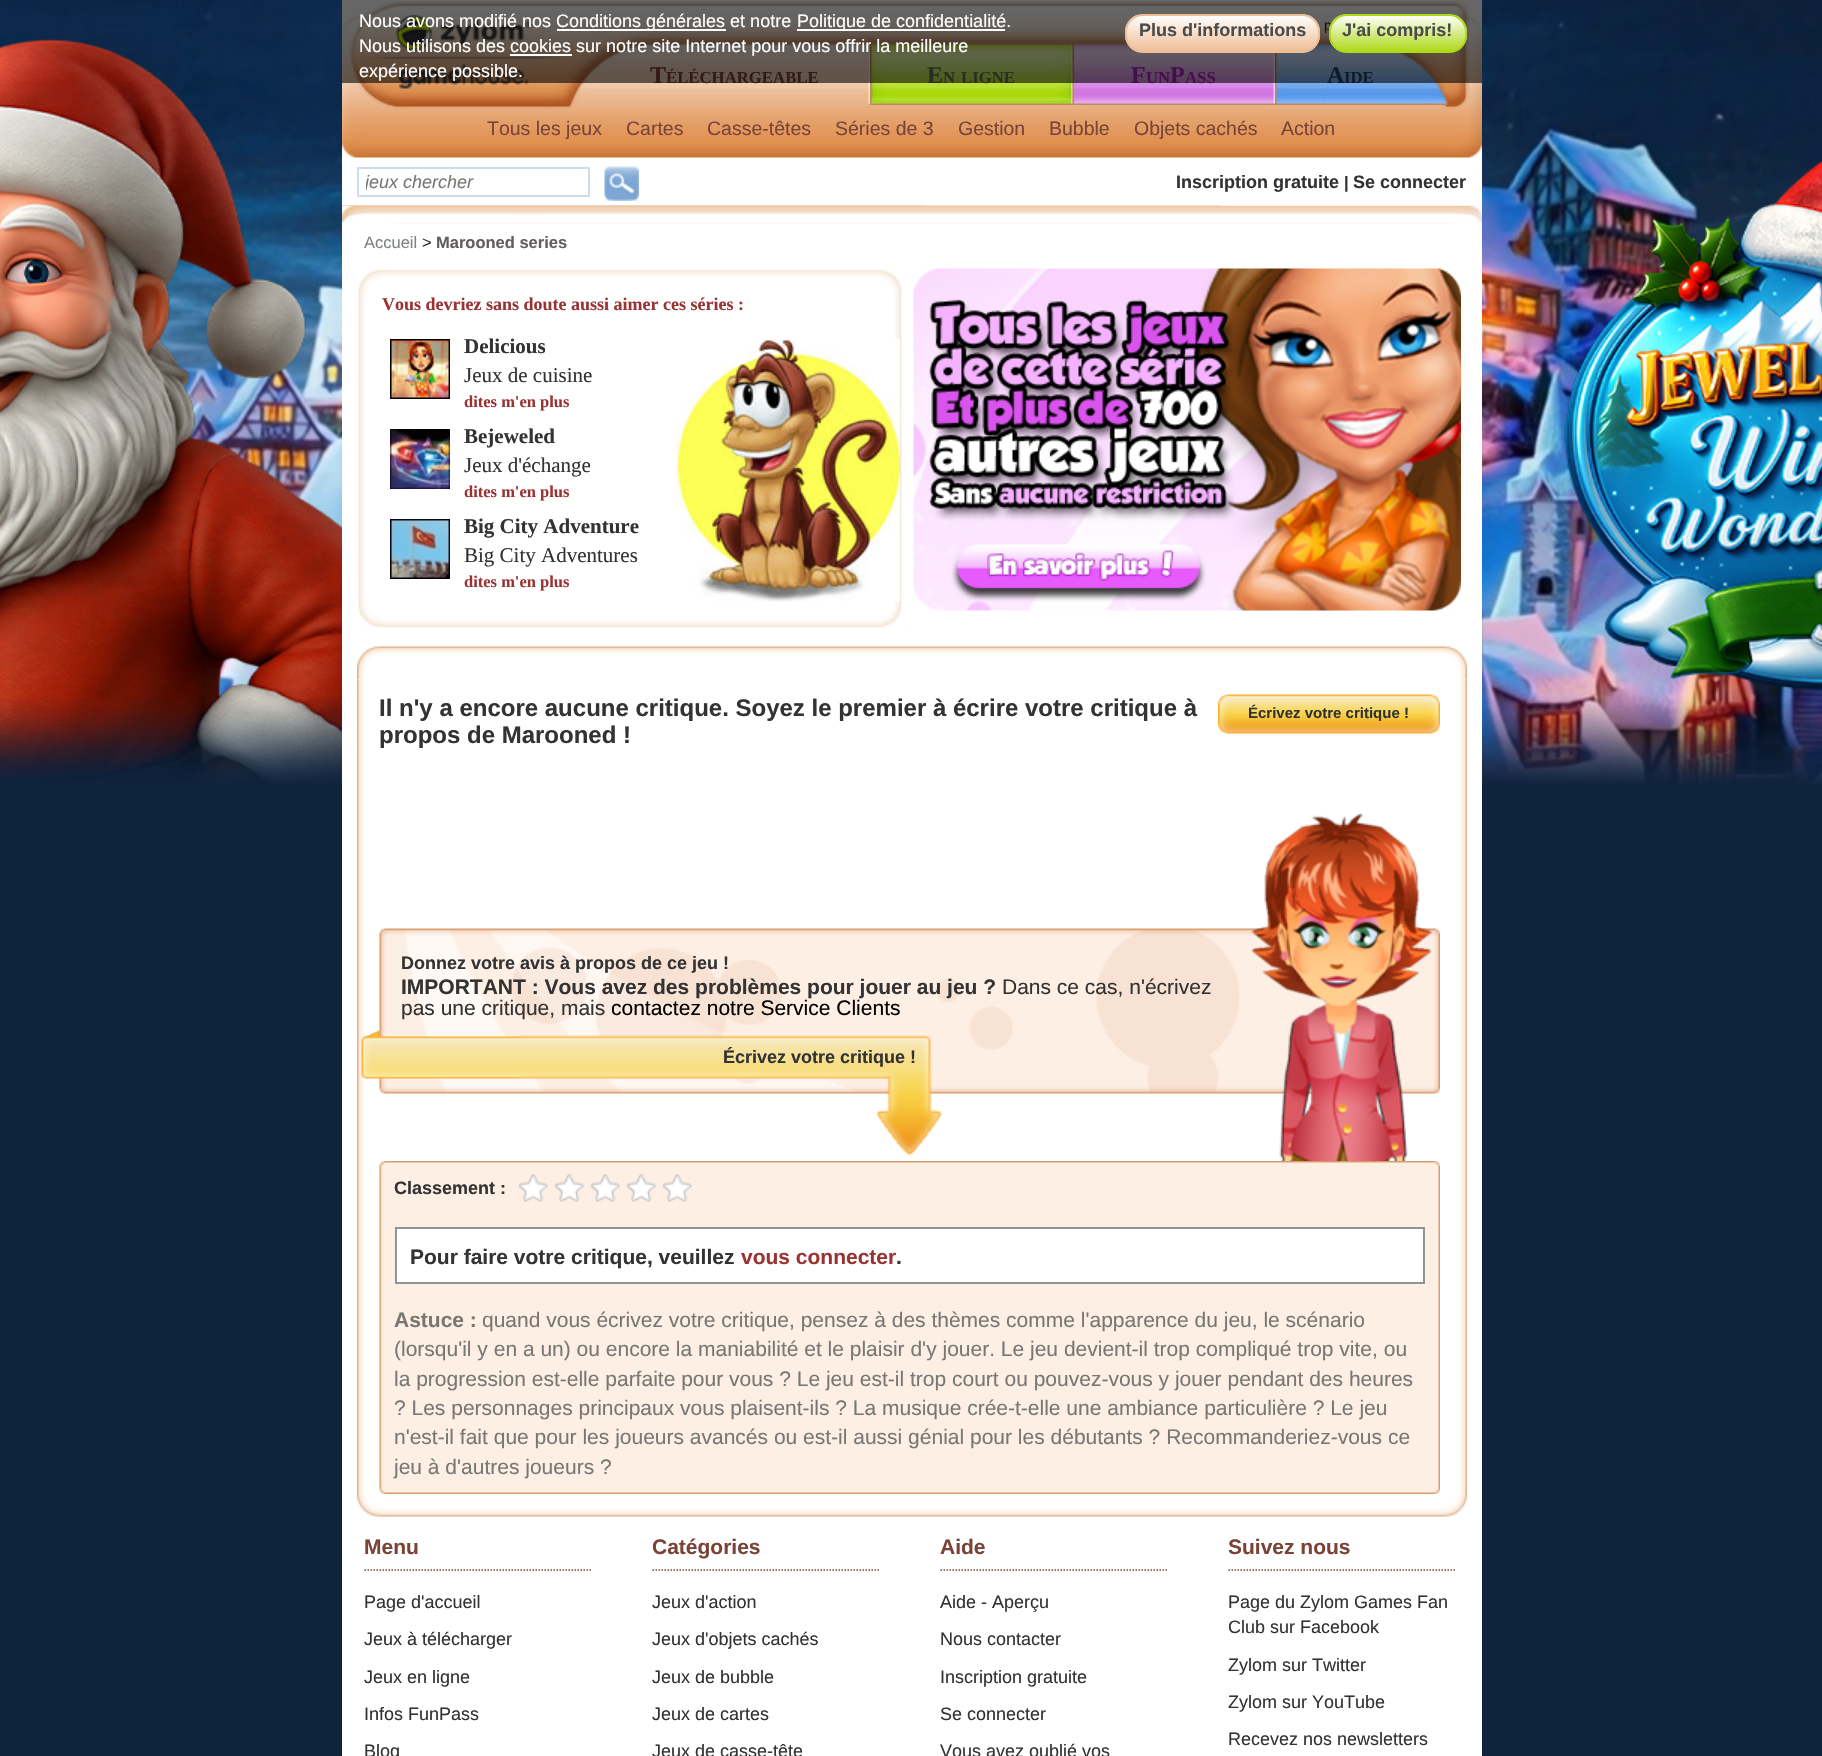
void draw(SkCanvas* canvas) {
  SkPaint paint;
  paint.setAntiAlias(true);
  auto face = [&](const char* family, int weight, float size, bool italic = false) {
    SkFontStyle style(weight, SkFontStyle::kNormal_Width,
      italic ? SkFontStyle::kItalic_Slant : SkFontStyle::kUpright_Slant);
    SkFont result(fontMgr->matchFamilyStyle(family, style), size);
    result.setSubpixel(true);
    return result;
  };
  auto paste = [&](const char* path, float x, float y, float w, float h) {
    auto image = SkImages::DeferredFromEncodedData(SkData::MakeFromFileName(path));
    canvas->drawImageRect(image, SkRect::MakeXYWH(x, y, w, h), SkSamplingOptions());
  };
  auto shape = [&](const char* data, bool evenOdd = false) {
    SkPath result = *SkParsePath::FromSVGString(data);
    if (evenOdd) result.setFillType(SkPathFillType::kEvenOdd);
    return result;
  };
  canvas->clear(0xff0e233e);
  paste("img/1.png", 0, 0, 1822, 784);
  paint.setColor(0xffffffff);
  canvas->drawRect(SkRect::MakeXYWH(342, 0, 1140, 1756), paint);
  paste("img/2.png", 342, 1, 1140, 157);
  paste("img/3.png", 570, 43, 300, 62);
  paste("img/4.png", 870, 43, 203, 62);
  paste("img/5.png", 1072, 43, 203, 62);
  paste("img/6.png", 1275, 43, 174, 62);
  paint.setStroke(true);
  paint.setStrokeWidth(2);
  paint.setColor(0xffccdcee);
  canvas->drawRect(SkRect::MakeXYWH(358, 168, 231, 28), paint);
  paste("img/7.png", 604, 166, 35, 35);
  paste("img/8.png", 342, 205, 1140, 19);
  paste("img/9.png", 358, 269, 547, 30);
  paste("img/10.png", 882, 269, 23, 30);
  paste("img/11.png", 895, 298, 7, 331);
  paste("img/12.png", 358, 298, 7, 331);
  paste("img/13.png", 358, 598, 547, 31);
  paste("img/14.png", 882, 598, 23, 31);
  paste("img/15.png", 675, 339, 225, 263);
  paste("img/16.png", 390, 339, 60, 60);
  paste("img/17.png", 390, 429, 60, 60);
  paste("img/18.png", 390, 519, 60, 60);
  paste("img/19.png", 913, 268, 548, 343);
  paste("img/20.png", 357, 646, 1110, 34);
  paste("img/21.png", 357, 679, 1110, 815);
  paste("img/22.png", 1218, 694, 222, 40);
  paste("img/23.png", 379, 928, 1061, 166);
  paste("img/24.png", 1251, 813, 182, 348);
  paste("img/25.png", 361, 1030, 581, 125);
  paste("img/26.png", 379, 1161, 1061, 12);
  paste("img/27.png", 379, 1173, 1061, 309);
  paste("img/28.png", 519, 1174, 29, 28);
  paste("img/28.png", 555, 1174, 29, 28);
  paste("img/29.png", 591, 1174, 29, 28);
  paste("img/28.png", 627, 1174, 29, 28);
  paste("img/28.png", 663, 1174, 29, 28);
  paint.setStroke(false);
  paint.setColor(0xffffffff);
  canvas->drawRect(SkRect::MakeXYWH(396, 1228, 1028, 55), paint);
  paint.setStroke(true);
  paint.setColor(0xff939393);
  canvas->drawRect(SkRect::MakeXYWH(396, 1228, 1028, 55), paint);
  paste("img/30.png", 379, 1482, 1061, 12);
  paste("img/31.png", 357, 1494, 1110, 23);
  paint.setStrokeWidth(1.5f);
  paint.setColor(0xff794336);
  paint.setPathEffect(SkDashPathEffect::Make({{1.5f, 1.5f}}, 0));
  canvas->drawPath(shape("M364.5 1570H592.5"), paint);
  paint.setPathEffect(nullptr);
  paint.setPathEffect(SkDashPathEffect::Make({{1.5f, 1.5f}}, 0));
  canvas->drawPath(shape("M652.5 1570H880.5"), paint);
  paint.setPathEffect(nullptr);
  paint.setPathEffect(SkDashPathEffect::Make({{1.5f, 1.5f}}, 0));
  canvas->drawPath(shape("M940.5 1570H1168.5"), paint);
  paint.setPathEffect(nullptr);
  paint.setPathEffect(SkDashPathEffect::Make({{1.5f, 1.5f}}, 0));
  canvas->drawPath(shape("M1228.5 1570H1456.5"), paint);
  paint.setPathEffect(nullptr);
  auto f0 = face("Liberation Sans", 400, 14);
  paint.setStroke(false);
  paint.setColor(0xff333333);
  canvas->drawString("p", 1324, 30, f0, paint);
  auto f1 = face("Liberation Serif", 700, 24);
  paint.setColor(0xff794336);
  canvas->drawString("T", 650, 83, f1, paint);
  auto f2 = face("Liberation Serif", 700, 16.75f);
  canvas->drawString("ÉLÉCHARGEABLE", 666, 83, f2, paint);
  paint.setColor(0xff5e7850);
  canvas->drawString("E", 927, 83, f1, paint);
  canvas->drawString("N", 943, 83, f2, paint);
  canvas->drawString("LIGNE", 961, 83, f2, paint);
  paint.setColor(0xffa926bd);
  canvas->drawString("F", 1131, 83, f1, paint);
  canvas->drawString("UN", 1146, 83, f2, paint);
  canvas->drawString("P", 1170, 83, f1, paint);
  canvas->drawString("ASS", 1185, 83, f2, paint);
  paint.setColor(0xff23436b);
  canvas->drawString("A", 1327, 83, f1, paint);
  canvas->drawString("IDE", 1344, 83, f2, paint);
  paint.setColor(0x99000000);
  canvas->drawRect(SkRect::MakeXYWH(342, 0, 1140, 83), paint);
  canvas->save();
  canvas->clipPath(shape("M1347 14H1449C1459 14 1467 22 1467 32V35C1467 45 1459 53 1449 53H1347C1337 53 1329 45 1329 35V32C1329 22 1337 14 1347 14Z"), true);
  {
    const SkColor colors[] = {0xffffffff, 0xffaed919};
    const float stops[] = {0, 1};
    const SkPoint ends[] = {{1398, 15}, {1398, 51}};
    paint.setShader(SkGradientShader::MakeLinear(ends, colors, stops, 2, SkTileMode::kClamp));
    paint.setAlpha(255);
  }
  canvas->drawRect(SkRect::MakeXYWH(1329, 15, 138, 36), paint);
  canvas->restore();
  paint.setStroke(true);
  paint.setStrokeWidth(2);
  paint.setShader(nullptr);
  paint.setColor(0xffaed919);
  canvas->drawRoundRect(SkRect::MakeXYWH(1330, 15, 136, 37), 17, 17, paint);
  auto f3 = face("Liberation Sans", 700, 18);
  paint.setStroke(false);
  paint.setColor(0xff4c4b4b);
  canvas->drawString("J'ai compris!", 1342, 36, f3, paint);
  canvas->save();
  canvas->clipPath(shape("M1143 14H1302C1312 14 1320 22 1320 32V35C1320 45 1312 53 1302 53H1143C1133 53 1125 45 1125 35V32C1125 22 1133 14 1143 14Z"), true);
  {
    const SkColor colors[] = {0xffffffff, 0xffeebe97};
    const float stops[] = {0, 1};
    const SkPoint ends[] = {{1223, 15}, {1223, 51}};
    paint.setShader(SkGradientShader::MakeLinear(ends, colors, stops, 2, SkTileMode::kClamp));
    paint.setAlpha(255);
  }
  canvas->drawRect(SkRect::MakeXYWH(1125, 15, 195, 36), paint);
  canvas->restore();
  paint.setStroke(true);
  paint.setShader(nullptr);
  paint.setColor(0xffeebe97);
  canvas->drawRoundRect(SkRect::MakeXYWH(1126, 15, 193, 37), 17, 17, paint);
  paint.setStroke(false);
  paint.setColor(0xff4c4b4b);
  canvas->drawString("Plus d'informations", 1139, 36, f3, paint);
  auto f4 = face("Liberation Sans", 400, 18);
  paint.setColor(0xffffffff);
  canvas->drawString("expérience possible.", 359, 77, f4, paint);
  canvas->drawRect(SkRect::MakeXYWH(510, 54, 62, 2), paint);
  canvas->drawString("Nous utilisons des cookies sur notre site Internet pour vous offrir la meilleure", 359, 52, f4, paint);
  canvas->drawRect(SkRect::MakeXYWH(797, 29, 208, 2), paint);
  canvas->drawString("Politique de confidentialité.", 797, 27, f4, paint);
  canvas->drawRect(SkRect::MakeXYWH(557, 29, 169, 2), paint);
  canvas->drawString("Conditions générales et notre", 556, 27, f4, paint);
  canvas->drawString("Nous avons modifié nos", 359, 27, f4, paint);
  auto f5 = face("Liberation Sans", 400, 19.5f);
  paint.setColor(0xff794336);
  {
    const struct { const char* s; float x, y; } items[] = {
      {"Tous les jeux", 487, 135},
      {"Cartes", 626, 135},
      {"Casse-têtes", 707, 135},
      {"Séries de 3", 835, 135},
      {"Gestion", 958, 135},
      {"Bubble", 1049, 135},
      {"Objets cachés", 1134, 135},
      {"Action", 1281, 135},
    };
    for (auto [s, x, y] : items) {
      canvas->drawString(s, x, y, f5, paint);
    }
  }
  canvas->save();
  canvas->clipRect(SkRect::MakeXYWH(366, 171, 222, 21));
  auto f6 = face("Liberation Sans", 400, 18, true);
  paint.setColor(0xff777873);
  canvas->drawString("jeux chercher", 365, 188, f6, paint);
  canvas->restore();
  paint.setColor(0xff333333);
  canvas->drawString("Inscription gratuite", 1176, 188, f3, paint);
  auto f7 = face("Liberation Sans", 700, 16.5f);
  canvas->drawString("|", 1344, 188, f7, paint);
  canvas->drawString("Se connecter", 1353, 188, f3, paint);
  auto f8 = face("Liberation Sans", 400, 16.5f);
  paint.setColor(0xff808483);
  canvas->drawString("Accueil", 364, 248, f8, paint);
  paint.setColor(0xff333333);
  canvas->drawString(">", 422, 248, f8, paint);
  paint.setColor(0xff625d61);
  canvas->drawString("Marooned series", 436, 248, f7, paint);
  auto f9 = face("Liberation Serif", 700, 18);
  paint.setColor(0xff9a3334);
  canvas->drawString("Vous devriez sans doute aussi aimer ces séries :", 382, 310, f9, paint);
  auto f10 = face("Liberation Serif", 700, 21);
  paint.setColor(0xff333333);
  canvas->drawString("Delicious", 464, 353, f10, paint);
  auto f11 = face("Liberation Serif", 400, 21);
  canvas->drawString("Jeux de cuisine", 464, 382, f11, paint);
  auto f12 = face("Liberation Serif", 700, 16.5f);
  paint.setColor(0xff9a3334);
  canvas->drawString("dites m'en plus", 464, 407, f12, paint);
  paint.setColor(0xff333333);
  canvas->drawString("Bejeweled", 464, 443, f10, paint);
  canvas->drawString("Jeux d'échange", 464, 472, f11, paint);
  paint.setColor(0xff9a3334);
  canvas->drawString("dites m'en plus", 464, 497, f12, paint);
  paint.setColor(0xff333333);
  canvas->drawString("Big City Adventure", 464, 533, f10, paint);
  canvas->drawString("Big City Adventures", 464, 562, f11, paint);
  paint.setColor(0xff9a3334);
  canvas->drawString("dites m'en plus", 464, 587, f12, paint);
  auto f13 = face("Liberation Sans", 700, 24);
  paint.setColor(0xff333333);
  canvas->drawString("Il n'y a encore aucune critique. Soyez le premier à écrire votre critique à", 379, 716, f13, paint);
  canvas->drawString("propos de Marooned !", 379, 743, f13, paint);
  auto f14 = face("Liberation Sans", 700, 15);
  canvas->drawString("Écrivez votre critique !", 1248, 718, f14, paint);
  canvas->drawString("Donnez votre avis à propos de ce jeu !", 401, 969, f3, paint);
  auto f15 = face("Liberation Sans", 700, 21);
  canvas->drawString("IMPORTANT : Vous avez des problèmes pour jouer au jeu ?", 401, 994, f15, paint);
  auto f16 = face("Liberation Sans", 400, 21);
  canvas->drawString("Dans ce cas, n'écrivez", 1002, 994, f16, paint);
  canvas->drawString("pas une critique, mais", 401, 1015, f16, paint);
  paint.setColor(0xff000000);
  canvas->drawString("contactez notre Service Clients", 611, 1015, f16, paint);
  paint.setColor(0xff333333);
  canvas->drawString("Écrivez votre critique !", 723, 1063, f3, paint);
  canvas->drawString("Classement :", 394, 1194, f3, paint);
  canvas->drawString("Pour faire votre critique, veuillez", 410, 1264, f15, paint);
  paint.setColor(0xff9a3334);
  canvas->drawString("vous connecter", 741, 1264, f15, paint);
  paint.setColor(0xff333333);
  canvas->drawString(".", 896, 1264, f15, paint);
  paint.setColor(0xff777873);
  canvas->drawString("Astuce :", 394, 1327, f15, paint);
  {
    const struct { const char* s; float x, y; } items[] = {
      {"quand vous écrivez votre critique, pensez à des thèmes comme l'apparence du jeu, le scénario", 482, 1327},
      {"(lorsqu'il y en a un) ou encore la maniabilité et le plaisir d'y jouer. Le jeu devient-il trop compliqué trop vite, ou", 394, 1356},
      {"la progression est-elle parfaite pour vous ? Le jeu est-il trop court ou pouvez-vous y jouer pendant des heures", 394, 1386},
      {"? Les personnages principaux vous plaisent-ils ? La musique crée-t-elle une ambiance particulière ? Le jeu", 394, 1415},
      {"n'est-il fait que pour les joueurs avancés ou est-il aussi génial pour les débutants ? Recommanderiez-vous ce", 394, 1444},
      {"jeu à d'autres joueurs ?", 394, 1474},
    };
    for (auto [s, x, y] : items) {
      canvas->drawString(s, x, y, f16, paint);
    }
  }
  paint.setColor(0xff794336);
  canvas->drawString("Menu", 364, 1554, f15, paint);
  paint.setColor(0xff333333);
  {
    const struct { const char* s; float x, y; } items[] = {
      {"Page d'accueil", 364, 1608},
      {"Jeux à télécharger", 364, 1645},
      {"Jeux en ligne", 364, 1683},
      {"Infos FunPass", 364, 1720},
      {"Blog", 364, 1757},
    };
    for (auto [s, x, y] : items) {
      canvas->drawString(s, x, y, f4, paint);
    }
  }
  paint.setColor(0xff794336);
  canvas->drawString("Catégories", 652, 1554, f15, paint);
  paint.setColor(0xff333333);
  {
    const struct { const char* s; float x, y; } items[] = {
      {"Jeux d'action", 652, 1608},
      {"Jeux d'objets cachés", 652, 1645},
      {"Jeux de bubble", 652, 1683},
      {"Jeux de cartes", 652, 1720},
      {"Jeux de casse-tête", 652, 1757},
    };
    for (auto [s, x, y] : items) {
      canvas->drawString(s, x, y, f4, paint);
    }
  }
  paint.setColor(0xff794336);
  canvas->drawString("Aide", 940, 1554, f15, paint);
  paint.setColor(0xff333333);
  {
    const struct { const char* s; float x, y; } items[] = {
      {"Aide - Aperçu", 940, 1608},
      {"Nous contacter", 940, 1645},
      {"Inscription gratuite", 940, 1683},
      {"Se connecter", 940, 1720},
      {"Vous avez oublié vos", 940, 1757},
    };
    for (auto [s, x, y] : items) {
      canvas->drawString(s, x, y, f4, paint);
    }
  }
  paint.setColor(0xff794336);
  canvas->drawString("Suivez nous", 1228, 1554, f15, paint);
  paint.setColor(0xff333333);
  {
    const struct { const char* s; float x, y; } items[] = {
      {"Page du Zylom Games Fan", 1228, 1608},
      {"Club sur Facebook", 1228, 1633},
      {"Zylom sur Twitter", 1228, 1671},
      {"Zylom sur YouTube", 1228, 1708},
      {"Recevez nos newsletters", 1228, 1745},
    };
    for (auto [s, x, y] : items) {
      canvas->drawString(s, x, y, f4, paint);
    }
  }
}
